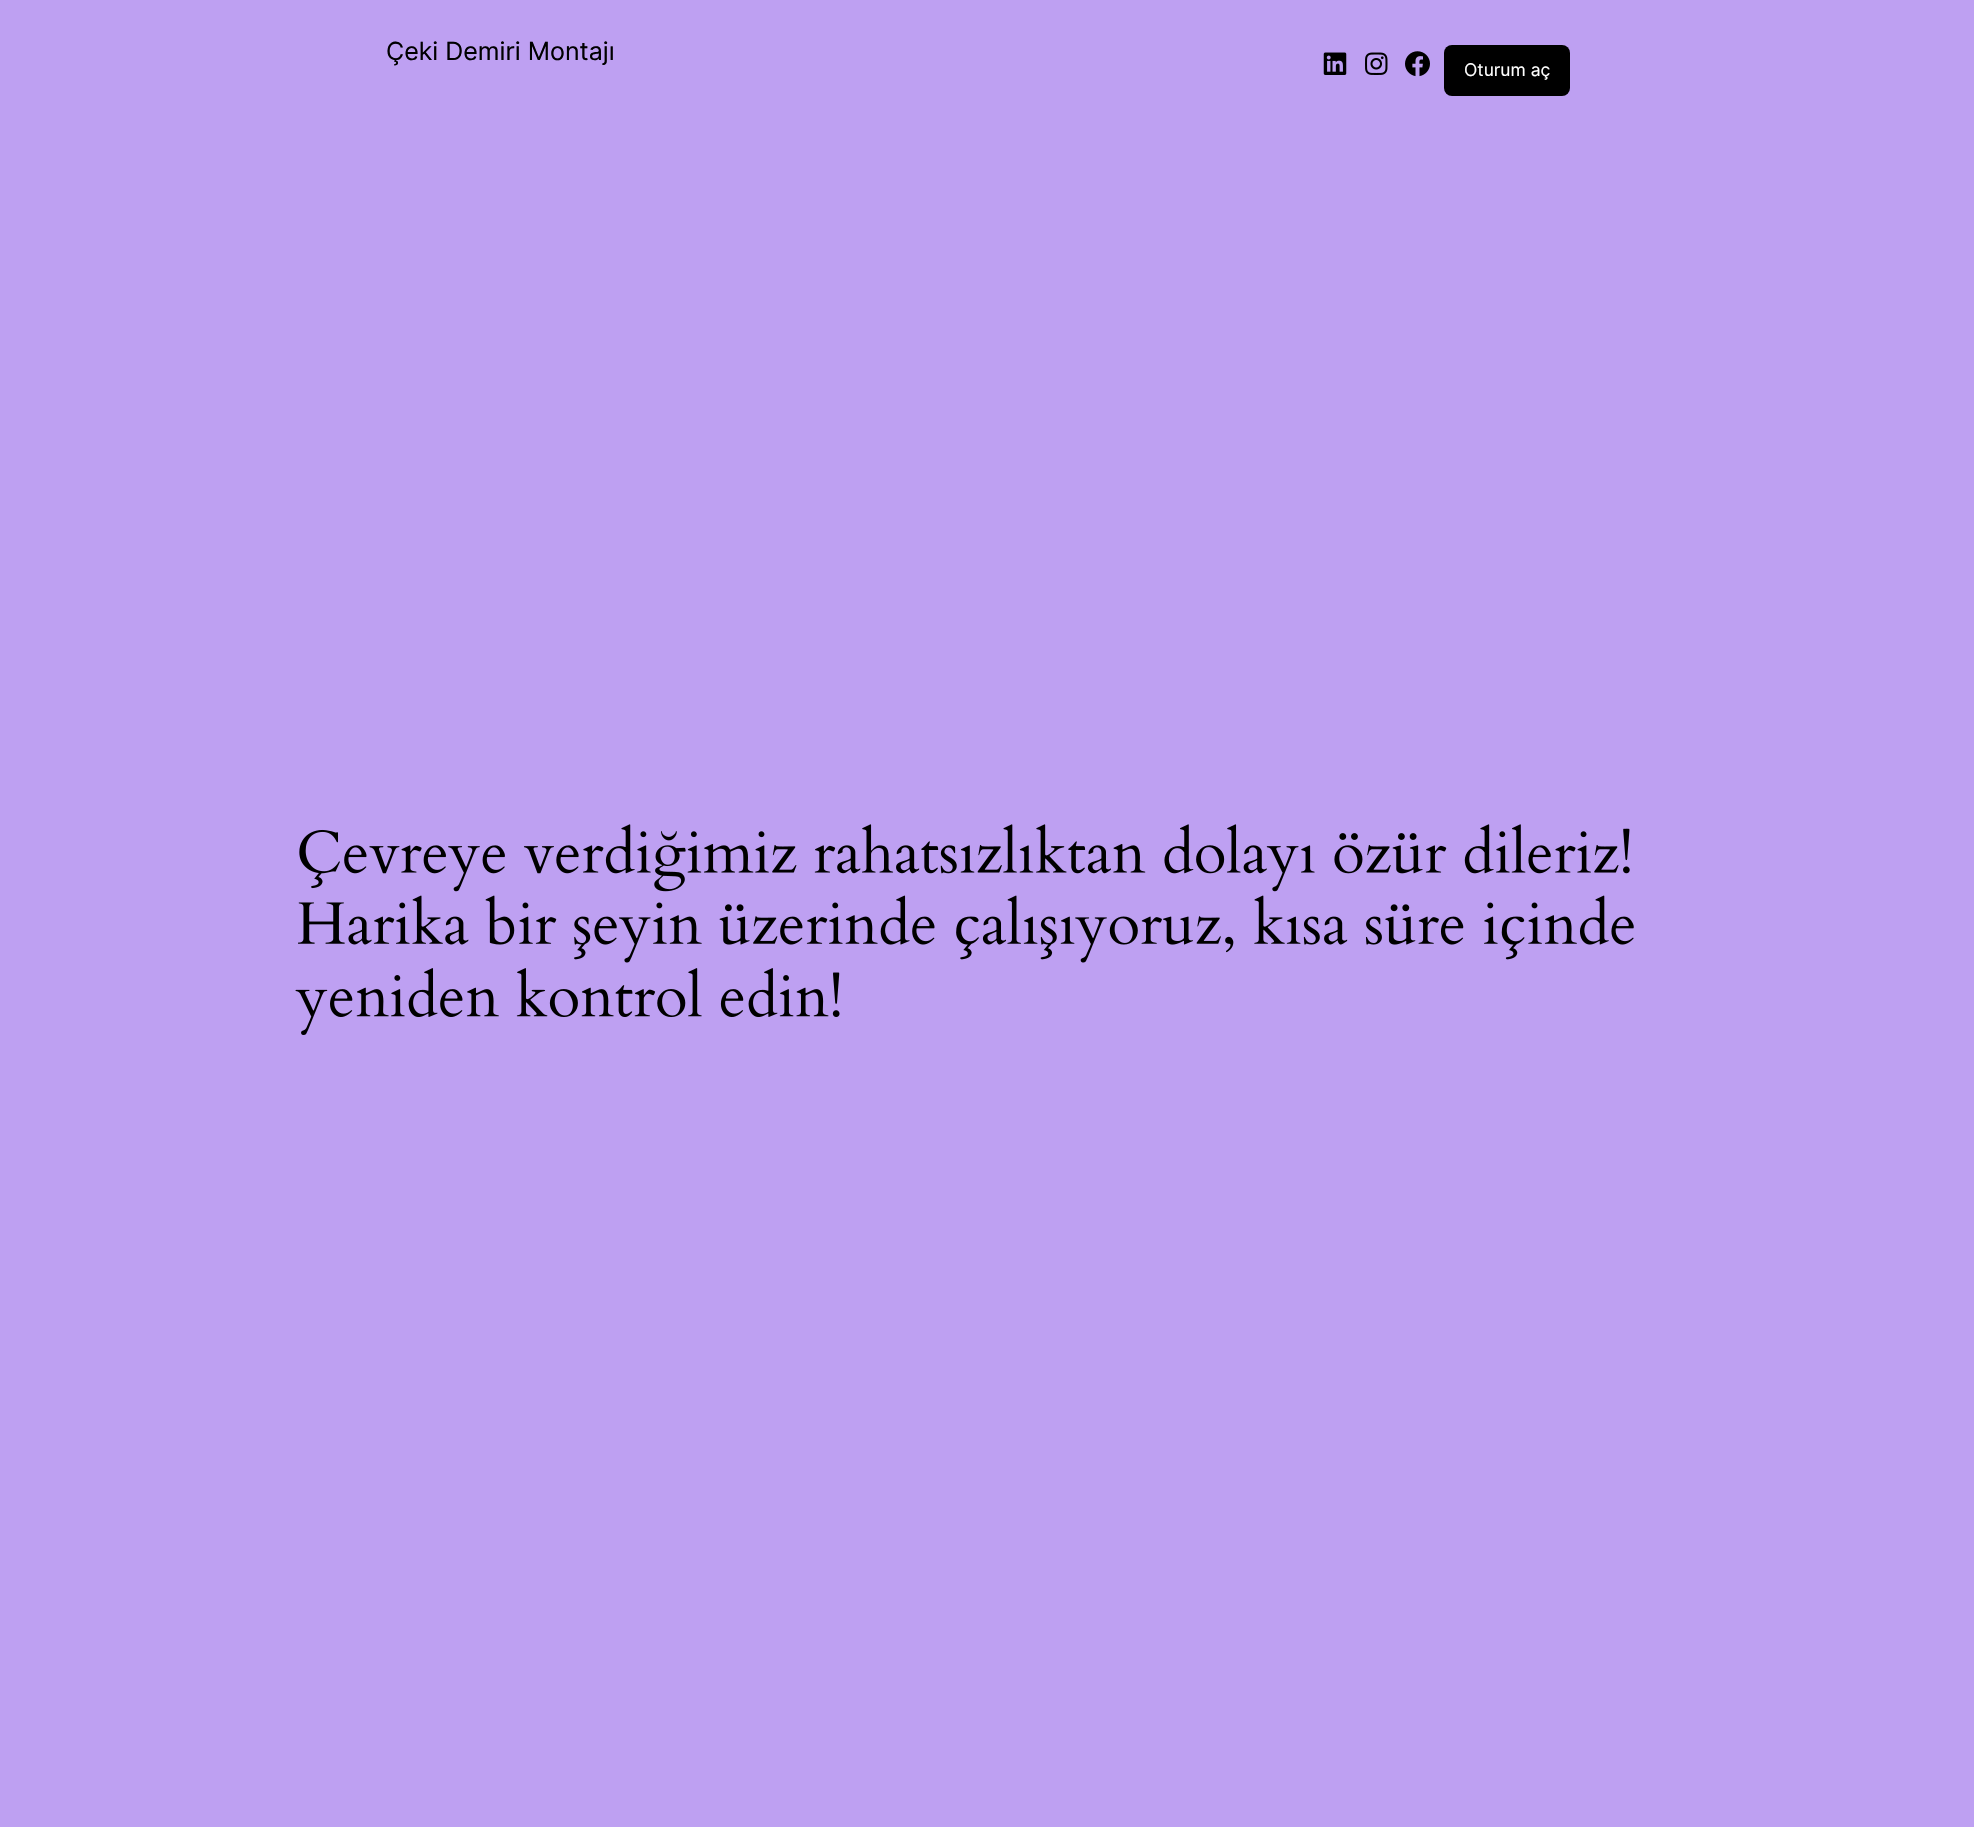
void draw(SkCanvas* canvas) {
  SkPaint paint;
  paint.setAntiAlias(true);
  auto face = [&](const char* family, int weight, float size, bool italic = false) {
    SkFontStyle style(weight, SkFontStyle::kNormal_Width,
      italic ? SkFontStyle::kItalic_Slant : SkFontStyle::kUpright_Slant);
    SkFont result(fontMgr->matchFamilyStyle(family, style), size);
    result.setSubpixel(true);
    return result;
  };
  auto paste = [&](const char* path, float x, float y, float w, float h) {
    auto image = SkImages::DeferredFromEncodedData(SkData::MakeFromFileName(path));
    canvas->drawImageRect(image, SkRect::MakeXYWH(x, y, w, h), SkSamplingOptions());
  };
  canvas->clear(0xffbea0f2);
  paste("img/1.png", 1323, 52, 24, 23);
  paste("img/2.png", 1365, 52, 23, 23);
  paste("img/3.png", 1405, 51, 25, 26);
  paint.setColor(0xff000000);
  canvas->drawRoundRect(SkRect::MakeXYWH(1444, 45, 126, 51), 8, 8, paint);
  paste("img/4.png", 299, 824, 1331, 68);
  paste("img/5.png", 298, 895, 1336, 68);
  paste("img/6.png", 295, 968, 545, 67);
  auto f0 = face("Inter", 400, 25);
  canvas->drawString("Çeki Demiri Montajı", 386, 60, f0, paint);
  auto f1 = face("Inter", 400, 17.5f);
  paint.setColor(0xffffffff);
  canvas->drawString("Oturum aç", 1464, 76, f1, paint);
}
